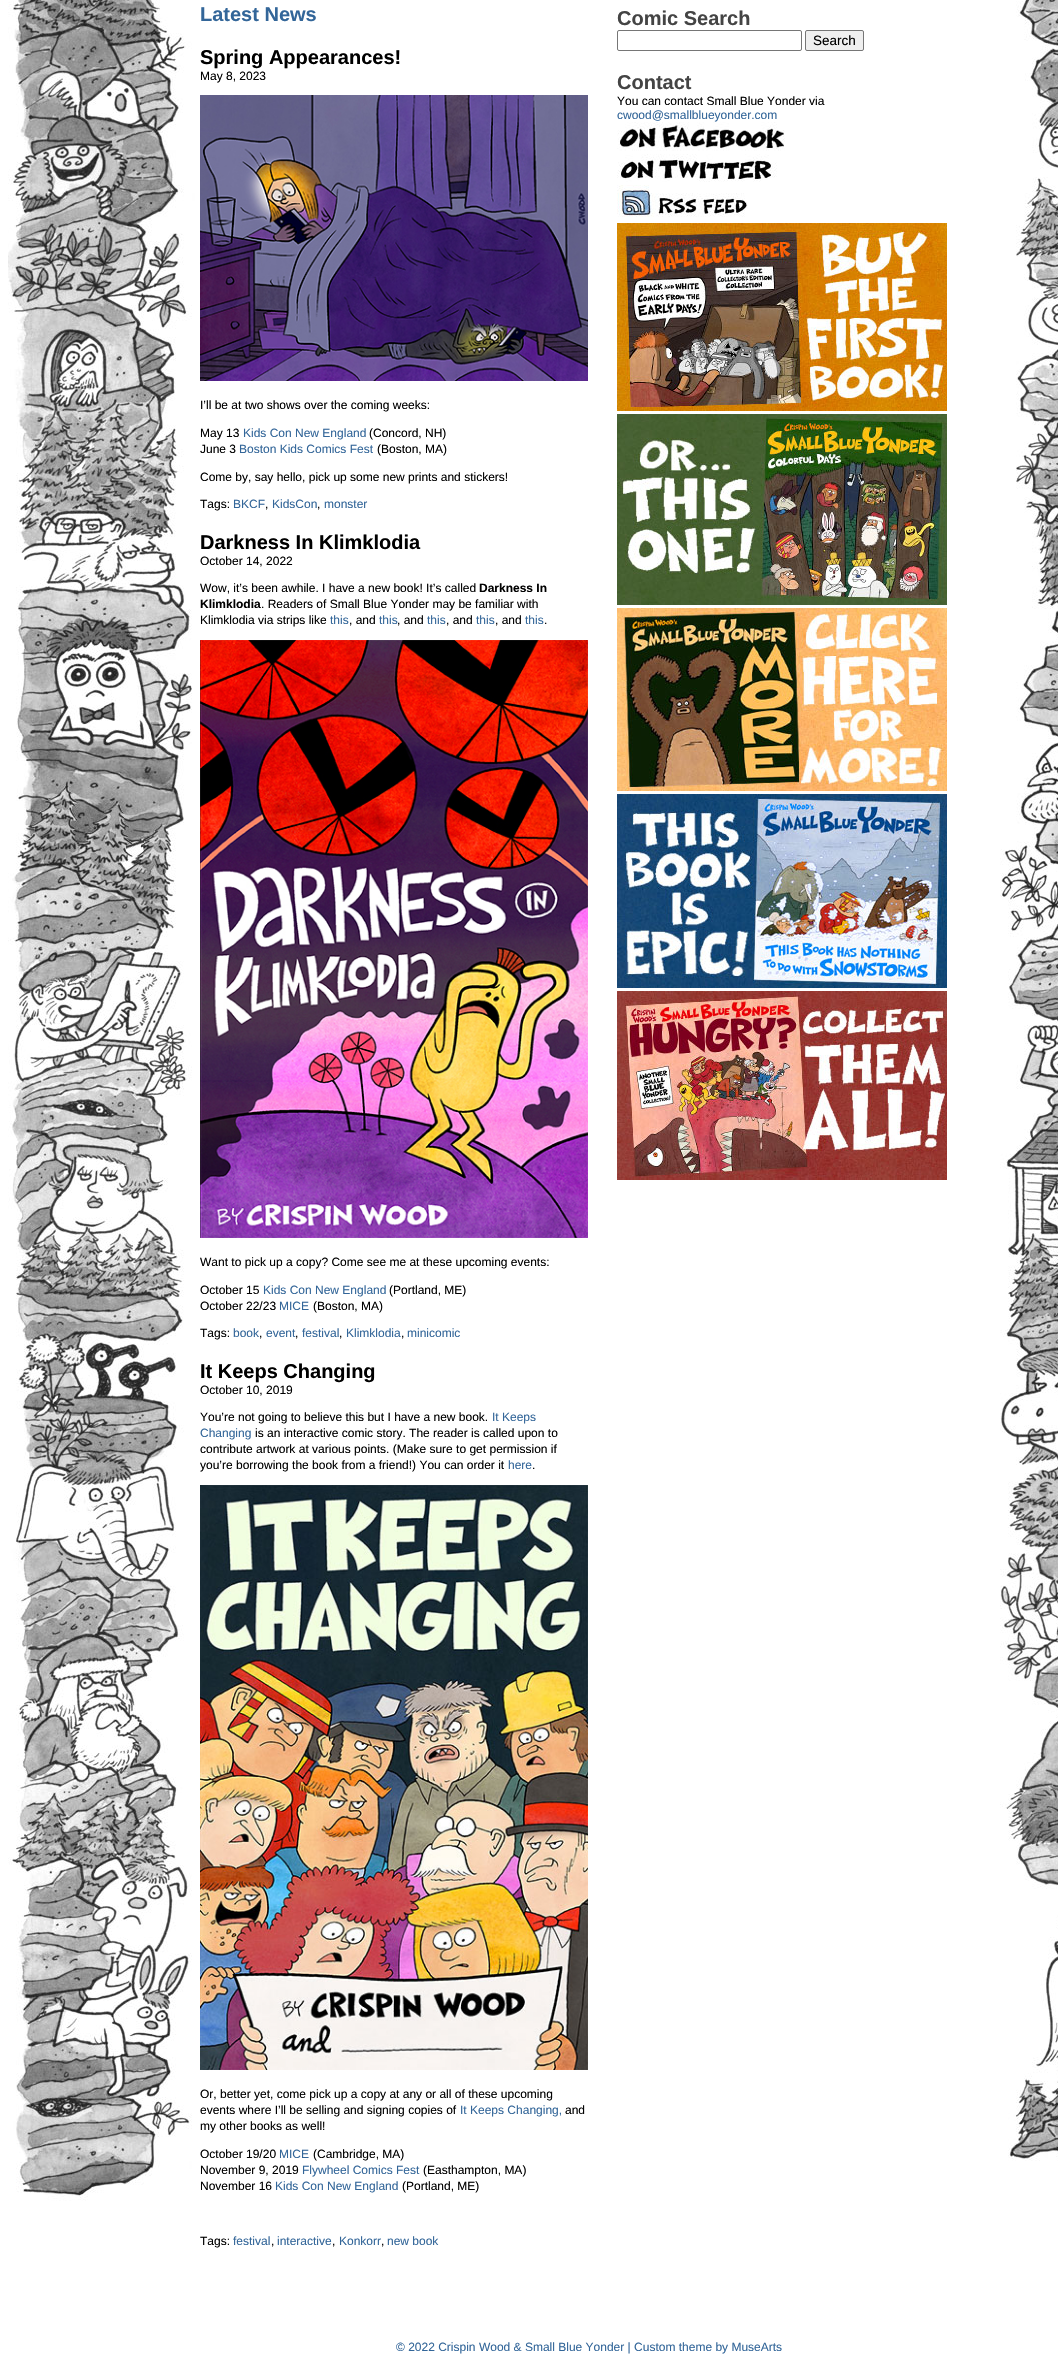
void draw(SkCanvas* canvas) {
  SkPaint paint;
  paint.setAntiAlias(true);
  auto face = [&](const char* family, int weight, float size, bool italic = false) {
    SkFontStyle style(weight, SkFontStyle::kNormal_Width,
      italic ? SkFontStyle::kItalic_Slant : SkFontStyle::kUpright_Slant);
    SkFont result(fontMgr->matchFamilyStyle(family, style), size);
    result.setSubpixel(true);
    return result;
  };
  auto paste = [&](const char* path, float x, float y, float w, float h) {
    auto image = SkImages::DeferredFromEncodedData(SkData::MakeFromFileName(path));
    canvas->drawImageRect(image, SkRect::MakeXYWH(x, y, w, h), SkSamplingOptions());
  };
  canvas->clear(0xffffffff);
  paste("img/1.png", 8, 0, 1050, 2201);
  paste("img/2.png", 200, 95, 388, 286);
  paste("img/3.png", 200, 640, 388, 598);
  paste("img/4.png", 200, 1485, 388, 585);
  paint.setStroke(true);
  paint.setStrokeWidth(1);
  paint.setColor(0xff767676);
  canvas->drawRoundRect(SkRect::MakeXYWH(617.5f, 30.5f, 184, 20), 1.5f, 1.5f, paint);
  paint.setStroke(false);
  paint.setColor(0xffefefef);
  canvas->drawRoundRect(SkRect::MakeXYWH(805.5f, 30.5f, 58, 20), 1.5f, 1.5f, paint);
  paint.setStroke(true);
  paint.setColor(0xff767676);
  canvas->drawRoundRect(SkRect::MakeXYWH(805.5f, 30.5f, 58, 20), 1.5f, 1.5f, paint);
  paste("img/5.png", 617, 122, 168, 29);
  paste("img/6.png", 617, 154, 160, 28);
  paste("img/7.png", 617, 185, 131, 32);
  paste("img/8.png", 617, 223, 330, 188);
  paste("img/9.png", 617, 414, 330, 191);
  paste("img/10.png", 617, 608, 330, 183);
  paste("img/11.png", 617, 794, 330, 194);
  paste("img/12.png", 617, 991, 330, 189);
  auto f0 = face("Liberation Sans", 700, 20);
  paint.setStroke(false);
  paint.setColor(0xff336699);
  canvas->drawString("Latest News", 200, 21, f0, paint);
  paint.setColor(0xff000000);
  canvas->drawString("Spring Appearances!", 200, 64, f0, paint);
  auto f1 = face("Liberation Sans", 400, 12);
  {
    const struct { const char* s; float x, y; } items[] = {
      {"May 8, 2023", 200, 80},
      {"I’ll be at two shows over the coming weeks:", 200, 409},
      {"May 13", 200, 437},
    };
    for (auto [s, x, y] : items) {
      canvas->drawString(s, x, y, f1, paint);
    }
  }
  paint.setColor(0xff336699);
  canvas->drawString("Kids Con New England", 243, 437, f1, paint);
  paint.setColor(0xff000000);
  canvas->drawString("(Concord, NH)", 369, 437, f1, paint);
  canvas->drawString("June 3", 200, 453, f1, paint);
  paint.setColor(0xff336699);
  canvas->drawString("Boston Kids Comics Fest", 239, 453, f1, paint);
  paint.setColor(0xff000000);
  {
    const struct { const char* s; float x, y; } items[] = {
      {"(Boston, MA)", 377, 453},
      {"Come by, say hello, pick up some new prints and stickers!", 200, 481},
      {"Tags:", 200, 508},
    };
    for (auto [s, x, y] : items) {
      canvas->drawString(s, x, y, f1, paint);
    }
  }
  paint.setColor(0xff336699);
  canvas->drawString("BKCF", 233, 508, f1, paint);
  paint.setColor(0xff000000);
  canvas->drawString(",", 265, 508, f1, paint);
  paint.setColor(0xff336699);
  canvas->drawString("KidsCon", 272, 508, f1, paint);
  paint.setColor(0xff000000);
  canvas->drawString(",", 317, 508, f1, paint);
  paint.setColor(0xff336699);
  canvas->drawString("monster", 324, 508, f1, paint);
  paint.setColor(0xff000000);
  canvas->drawString("Darkness In Klimklodia", 200, 549, f0, paint);
  canvas->drawString("October 14, 2022", 200, 565, f1, paint);
  canvas->drawString("Wow, it’s been awhile. I have a new book! It’s called", 200, 592, f1, paint);
  auto f2 = face("Liberation Sans", 700, 12);
  canvas->drawString("Darkness In", 479, 592, f2, paint);
  canvas->drawString("Klimklodia", 200, 608, f2, paint);
  canvas->drawString(". Readers of Small Blue Yonder may be familiar with", 261, 608, f1, paint);
  canvas->drawString("Klimklodia via strips like", 200, 624, f1, paint);
  paint.setColor(0xff336699);
  canvas->drawString("this", 330, 624, f1, paint);
  paint.setColor(0xff000000);
  canvas->drawString(", and", 349, 624, f1, paint);
  paint.setColor(0xff336699);
  canvas->drawString("this", 379, 624, f1, paint);
  paint.setColor(0xff000000);
  canvas->drawString(", and", 397, 624, f1, paint);
  paint.setColor(0xff336699);
  canvas->drawString("this", 427, 624, f1, paint);
  paint.setColor(0xff000000);
  canvas->drawString(", and", 446, 624, f1, paint);
  paint.setColor(0xff336699);
  canvas->drawString("this", 476, 624, f1, paint);
  paint.setColor(0xff000000);
  canvas->drawString(", and", 495, 624, f1, paint);
  paint.setColor(0xff336699);
  canvas->drawString("this", 525, 624, f1, paint);
  paint.setColor(0xff000000);
  {
    const struct { const char* s; float x, y; } items[] = {
      {".", 544, 624},
      {"Want to pick up a copy? Come see me at these upcoming events:", 200, 1266},
      {"October 15", 200, 1294},
    };
    for (auto [s, x, y] : items) {
      canvas->drawString(s, x, y, f1, paint);
    }
  }
  paint.setColor(0xff336699);
  canvas->drawString("Kids Con New England", 263, 1294, f1, paint);
  paint.setColor(0xff000000);
  canvas->drawString("(Portland, ME)", 389, 1294, f1, paint);
  canvas->drawString("October 22/23", 200, 1310, f1, paint);
  paint.setColor(0xff336699);
  canvas->drawString("MICE", 279, 1310, f1, paint);
  paint.setColor(0xff000000);
  canvas->drawString("(Boston, MA)", 313, 1310, f1, paint);
  canvas->drawString("Tags:", 200, 1337, f1, paint);
  paint.setColor(0xff336699);
  canvas->drawString("book", 233, 1337, f1, paint);
  paint.setColor(0xff000000);
  canvas->drawString(",", 259, 1337, f1, paint);
  paint.setColor(0xff336699);
  canvas->drawString("event", 266, 1337, f1, paint);
  paint.setColor(0xff000000);
  canvas->drawString(",", 295, 1337, f1, paint);
  paint.setColor(0xff336699);
  canvas->drawString("festival", 302, 1337, f1, paint);
  paint.setColor(0xff000000);
  canvas->drawString(",", 339, 1337, f1, paint);
  paint.setColor(0xff336699);
  canvas->drawString("Klimklodia", 346, 1337, f1, paint);
  paint.setColor(0xff000000);
  canvas->drawString(",", 401, 1337, f1, paint);
  paint.setColor(0xff336699);
  canvas->drawString("minicomic", 407, 1337, f1, paint);
  paint.setColor(0xff000000);
  canvas->drawString("It Keeps Changing", 200, 1378, f0, paint);
  canvas->drawString("October 10, 2019", 200, 1394, f1, paint);
  canvas->drawString("You’re not going to believe this but I have a new book.", 200, 1421, f1, paint);
  paint.setColor(0xff336699);
  canvas->drawString("It Keeps", 492, 1421, f1, paint);
  canvas->drawString("Changing", 200, 1437, f1, paint);
  paint.setColor(0xff000000);
  {
    const struct { const char* s; float x, y; } items[] = {
      {"is an interactive comic story. The reader is called upon to", 255, 1437},
      {"contribute artwork at various points. (Make sure to get permission if", 200, 1453},
      {"you’re borrowing the book from a friend!) You can order it", 200, 1469},
    };
    for (auto [s, x, y] : items) {
      canvas->drawString(s, x, y, f1, paint);
    }
  }
  paint.setColor(0xff336699);
  canvas->drawString("here", 508, 1469, f1, paint);
  paint.setColor(0xff000000);
  {
    const struct { const char* s; float x, y; } items[] = {
      {".", 532, 1469},
      {"Or, better yet, come pick up a copy at any or all of these upcoming", 200, 2098},
      {"events where I’ll be selling and signing copies of", 200, 2114},
    };
    for (auto [s, x, y] : items) {
      canvas->drawString(s, x, y, f1, paint);
    }
  }
  paint.setColor(0xff336699);
  canvas->drawString("It Keeps Changing,", 460, 2114, f1, paint);
  paint.setColor(0xff000000);
  {
    const struct { const char* s; float x, y; } items[] = {
      {"and", 565, 2114},
      {"my other books as well!", 200, 2130},
      {"October 19/20", 200, 2158},
    };
    for (auto [s, x, y] : items) {
      canvas->drawString(s, x, y, f1, paint);
    }
  }
  paint.setColor(0xff336699);
  canvas->drawString("MICE", 279, 2158, f1, paint);
  paint.setColor(0xff000000);
  canvas->drawString("(Cambridge, MA)", 313, 2158, f1, paint);
  canvas->drawString("November 9, 2019", 200, 2174, f1, paint);
  paint.setColor(0xff336699);
  canvas->drawString("Flywheel Comics Fest", 302, 2174, f1, paint);
  paint.setColor(0xff000000);
  canvas->drawString("(Easthampton, MA)", 423, 2174, f1, paint);
  canvas->drawString("November 16", 200, 2190, f1, paint);
  paint.setColor(0xff336699);
  canvas->drawString("Kids Con New England", 275, 2190, f1, paint);
  paint.setColor(0xff000000);
  canvas->drawString("(Portland, ME)", 402, 2190, f1, paint);
  canvas->drawString("Tags:", 200, 2245, f1, paint);
  paint.setColor(0xff336699);
  canvas->drawString("festival", 233, 2245, f1, paint);
  paint.setColor(0xff000000);
  canvas->drawString(",", 271, 2245, f1, paint);
  paint.setColor(0xff336699);
  canvas->drawString("interactive", 277, 2245, f1, paint);
  paint.setColor(0xff000000);
  canvas->drawString(",", 332, 2245, f1, paint);
  paint.setColor(0xff336699);
  canvas->drawString("Konkorr", 339, 2245, f1, paint);
  paint.setColor(0xff000000);
  canvas->drawString(",", 381, 2245, f1, paint);
  paint.setColor(0xff336699);
  canvas->drawString("new book", 387, 2245, f1, paint);
  paint.setColor(0xff444444);
  canvas->drawString("Comic Search", 617, 25, f0, paint);
  auto f3 = face("Liberation Sans", 400, 13.5f);
  paint.setColor(0xff000000);
  canvas->drawString("Search", 813, 45, f3, paint);
  paint.setColor(0xff444444);
  canvas->drawString("Contact", 617, 89, f0, paint);
  paint.setColor(0xff000000);
  canvas->drawString("You can contact Small Blue Yonder via", 617, 105, f1, paint);
  paint.setColor(0xff336699);
  canvas->drawString("cwood@smallblueyonder.com", 617, 119, f1, paint);
  canvas->drawString("© 2022 Crispin Wood & Small Blue Yonder | Custom theme by MuseArts", 396, 2351, f1, paint);
}
